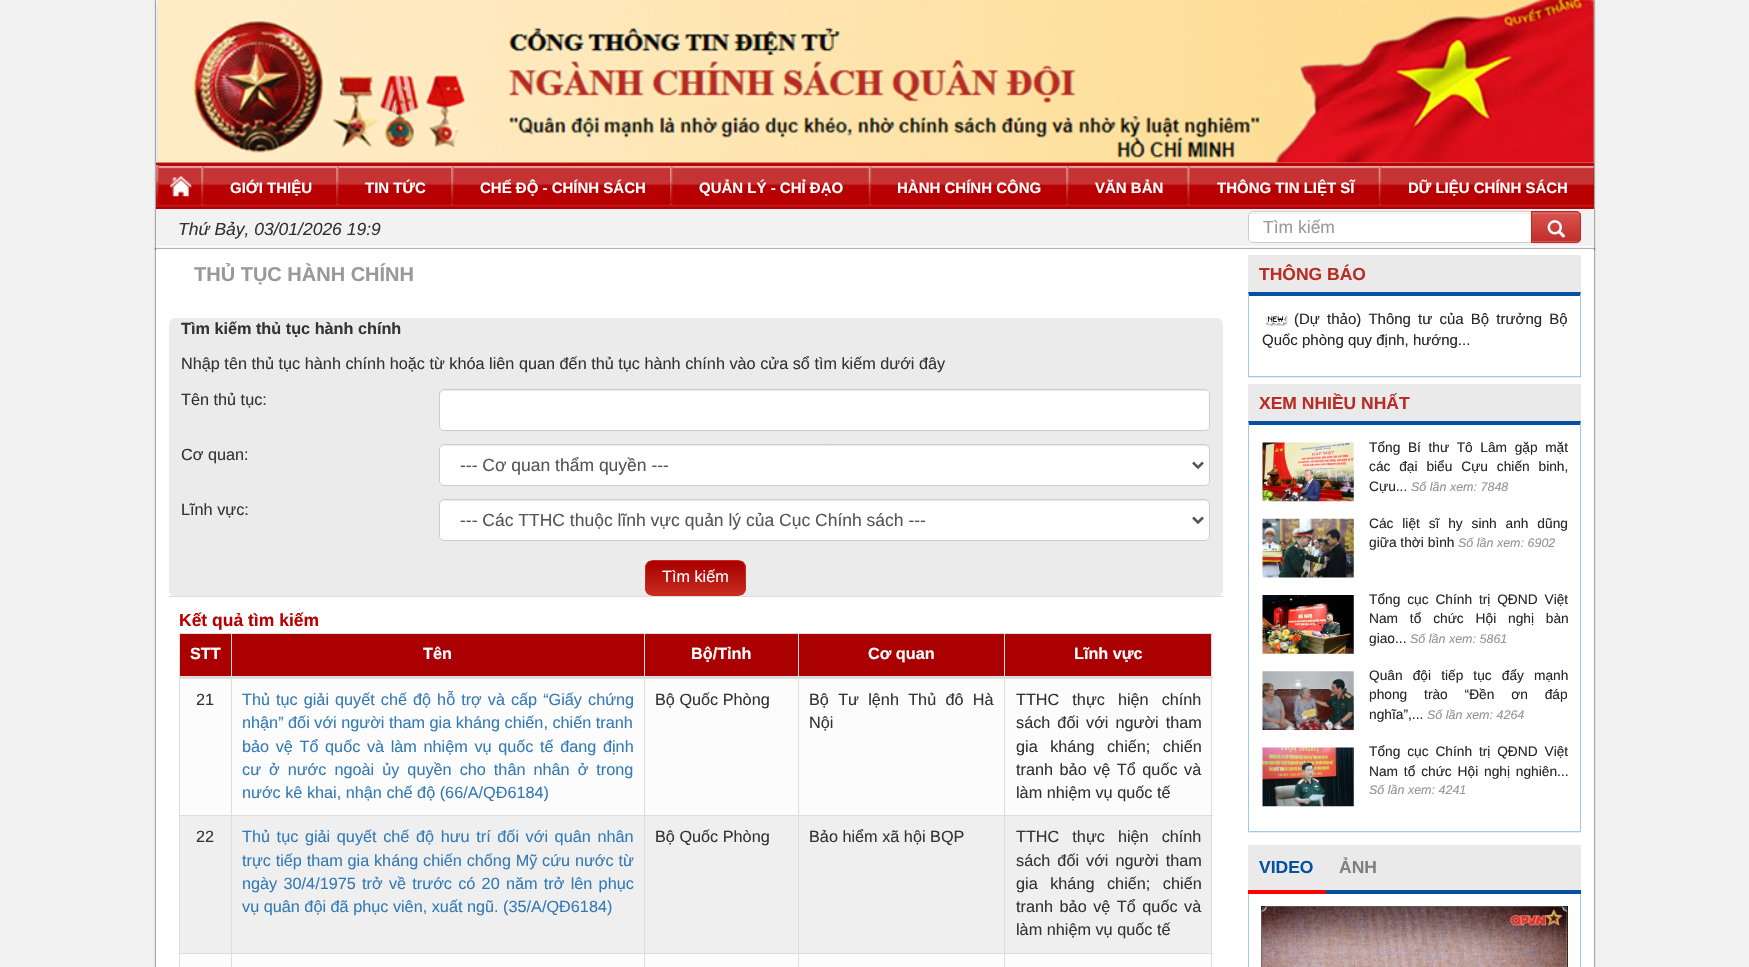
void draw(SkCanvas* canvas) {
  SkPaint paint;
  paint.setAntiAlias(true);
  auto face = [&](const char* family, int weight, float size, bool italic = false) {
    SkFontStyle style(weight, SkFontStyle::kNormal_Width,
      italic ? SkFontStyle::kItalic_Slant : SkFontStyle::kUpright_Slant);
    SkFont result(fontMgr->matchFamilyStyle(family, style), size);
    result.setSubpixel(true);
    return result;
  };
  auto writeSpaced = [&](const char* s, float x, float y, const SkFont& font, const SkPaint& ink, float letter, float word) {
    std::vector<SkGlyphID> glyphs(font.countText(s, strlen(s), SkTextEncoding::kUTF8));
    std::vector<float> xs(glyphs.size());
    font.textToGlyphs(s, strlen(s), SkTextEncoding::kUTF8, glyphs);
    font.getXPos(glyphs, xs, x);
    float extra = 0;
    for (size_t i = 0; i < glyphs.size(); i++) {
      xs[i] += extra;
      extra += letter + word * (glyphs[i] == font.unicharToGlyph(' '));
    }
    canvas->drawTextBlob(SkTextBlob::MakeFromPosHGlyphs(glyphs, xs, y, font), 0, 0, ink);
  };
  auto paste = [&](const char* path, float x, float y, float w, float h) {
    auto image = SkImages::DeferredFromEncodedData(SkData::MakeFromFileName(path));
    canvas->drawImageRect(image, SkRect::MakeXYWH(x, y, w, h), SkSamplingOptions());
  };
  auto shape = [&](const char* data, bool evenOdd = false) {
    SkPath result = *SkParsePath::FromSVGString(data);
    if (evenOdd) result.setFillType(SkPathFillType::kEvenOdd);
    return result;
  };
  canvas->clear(0xfff1f1f1);
  paint.setColor(0x4d000000);
  paint.setMaskFilter(SkMaskFilter::MakeBlur(kNormal_SkBlurStyle, 0.5f));
  canvas->drawRect(SkRect::MakeXYWH(155, -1, 1440, 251), paint);
  paint.setMaskFilter(nullptr);
  paint.setColor(0xffffffff);
  canvas->drawRect(SkRect::MakeXYWH(156, 0, 1438, 249), paint);
  paste("img/1.png", 156, 0, 1438, 163);
  paint.setColor(0xffb80002);
  canvas->drawRect(SkRect::MakeXYWH(156, 163, 1438, 46), paint);
  paste("img/2.png", 156, 162, 1438, 45);
  paste("img/3.png", 156, 165, 3, 39);
  paste("img/4.png", 170, 176, 22, 21);
  paste("img/5.png", 201, 166, 3, 39);
  paste("img/5.png", 336, 166, 3, 39);
  paste("img/5.png", 451, 166, 3, 39);
  paste("img/6.png", 670, 166, 3, 39);
  paste("img/7.png", 868, 166, 4, 39);
  paste("img/5.png", 1066, 166, 3, 39);
  paste("img/8.png", 1187, 166, 3, 39);
  paste("img/7.png", 1378, 166, 4, 39);
  paint.setColor(0x4d000000);
  paint.setMaskFilter(SkMaskFilter::MakeBlur(kNormal_SkBlurStyle, 0.5f));
  canvas->drawRect(SkRect::MakeXYWH(155, 248, 1440, 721), paint);
  paint.setMaskFilter(nullptr);
  paint.setColor(0xfff2f2f2);
  canvas->drawRect(SkRect::MakeXYWH(156, 209, 1438, 37), paint);
  paint.setColor(0xffffffff);
  canvas->drawPath(shape("M1253 211H1533V243H1253C1250 243 1248 241 1248 238V216C1248 213 1250 211 1253 211Z"), paint);
  paint.setColor(0xffececec);
  canvas->drawPath(shape("M1252 214H1531V213H1253C1250 213 1249 215 1249 218C1249 215 1250 214 1252 214Z"), paint);
  paint.setStroke(true);
  paint.setStrokeWidth(1);
  paint.setColor(0xffcccccc);
  canvas->drawPath(shape("M1253 211.5H1532.5V242.5H1253C1250.5 242.5 1248.5 240.5 1248.5 238V216C1248.5 213.5 1250.5 211.5 1253 211.5Z"), paint);
  paint.setStroke(false);
  paint.setColor(0x12000000);
  paint.setMaskFilter(SkMaskFilter::MakeBlur(kNormal_SkBlurStyle, 0.5f));
  canvas->drawRoundRect(SkRect::MakeXYWH(1531, 213, 50, 31), 5, 5, paint);
  paint.setMaskFilter(nullptr);
  paint.setColor(0xffd9534f);
  canvas->drawPath(shape("M1531 211H1576C1579 211 1581 213 1581 216V238C1581 241 1579 243 1576 243H1531Z"), paint);
  canvas->save();
  canvas->clipPath(shape("M1531 211H1576C1579 211 1581 213 1581 216V238C1581 241 1579 243 1576 243H1531Z"), true);
  {
    const SkColor colors[] = {0xffd9534f, 0xffc12e2a};
    const float stops[] = {0, 1};
    const SkPoint ends[] = {{1556, 213}, {1556, 241}};
    paint.setShader(SkGradientShader::MakeLinear(ends, colors, stops, 2, SkTileMode::kClamp));
    paint.setAlpha(255);
  }
  canvas->drawRect(SkRect::MakeXYWH(1532, 213, 49, 28), paint);
  canvas->restore();
  paint.setShader(nullptr);
  paint.setColor(0xffdf6c69);
  canvas->drawPath(shape("M1533 213V214H1577C1578 215 1579 215 1580 216C1579 214 1578 213 1576 213Z"), paint);
  paint.setStroke(true);
  paint.setColor(0xffb92c28);
  canvas->drawPath(shape("M1531.5 211.5H1576C1578.5 211.5 1580.5 213.5 1580.5 216V238C1580.5 240.5 1578.5 242.5 1576 242.5H1531.5Z"), paint);
  paste("img/9.png", 1547, 220, 19, 18);
  paint.setStroke(false);
  paint.setColor(0xffffffff);
  canvas->drawRect(SkRect::MakeXYWH(156, 249, 1438, 718), paint);
  paint.setColor(0xffebebeb);
  canvas->drawRoundRect(SkRect::MakeXYWH(169, 318, 1054, 278), 6, 6, paint);
  paint.setColor(0xffffffff);
  canvas->drawRoundRect(SkRect::MakeXYWH(439, 389, 771, 42), 5, 5, paint);
  paint.setColor(0xffececec);
  canvas->drawPath(shape("M444 391H1205C1207 391 1209 393 1209 395V394C1209 392 1207 390 1205 390H444C442 390 440 392 440 394V395C440 393 442 391 444 391Z"), paint);
  paint.setStroke(true);
  paint.setColor(0xffcccccc);
  canvas->drawRoundRect(SkRect::MakeXYWH(439.5f, 389.5f, 770, 41), 4.5f, 4.5f, paint);
  paint.setStroke(false);
  paint.setColor(0xffffffff);
  canvas->drawRoundRect(SkRect::MakeXYWH(439, 444, 771, 42), 5, 5, paint);
  paint.setColor(0xffececec);
  canvas->drawPath(shape("M444 446H1205C1207 446 1209 448 1209 450V449C1209 447 1207 445 1205 445H444C442 445 440 447 440 449V450C440 448 442 446 444 446Z"), paint);
  paint.setStroke(true);
  paint.setColor(0xffcccccc);
  canvas->drawRoundRect(SkRect::MakeXYWH(439.5f, 444.5f, 770, 41), 4.5f, 4.5f, paint);
  paint.setStrokeWidth(2.5f);
  paint.setColor(0xff555555);
  canvas->drawPath(shape("M1193 462.5L1198 467.5L1203 462.5"), paint);
  paint.setStroke(false);
  paint.setColor(0xffffffff);
  canvas->drawRoundRect(SkRect::MakeXYWH(439, 499, 771, 42), 5, 5, paint);
  paint.setColor(0xffececec);
  canvas->drawPath(shape("M444 501H1205C1207 501 1209 503 1209 505V504C1209 502 1207 500 1205 500H444C442 500 440 502 440 504V505C440 503 442 501 444 501Z"), paint);
  paint.setStroke(true);
  paint.setStrokeWidth(1);
  paint.setColor(0xffcccccc);
  canvas->drawRoundRect(SkRect::MakeXYWH(439.5f, 499.5f, 770, 41), 4.5f, 4.5f, paint);
  paint.setStrokeWidth(2.5f);
  paint.setColor(0xff555555);
  canvas->drawPath(shape("M1193 517.5L1198 522.5L1203 517.5"), paint);
  canvas->save();
  canvas->clipPath(shape("M653 560H738C742.5 560 746 563.5 746 568V588C746 592.5 742.5 596 738 596H653C648.5 596 645 592.5 645 588V568C645 563.5 648.5 560 653 560Z"), true);
  paint.setStroke(false);
  {
    const SkColor colors[] = {0xffaa0002, 0xffc62d1f};
    const float stops[] = {0.05f, 1};
    const SkPoint ends[] = {{696, 561}, {696, 595}};
    paint.setShader(SkGradientShader::MakeLinear(ends, colors, stops, 2, SkTileMode::kClamp));
    paint.setAlpha(255);
  }
  canvas->drawRect(SkRect::MakeXYWH(645, 561, 101, 34), paint);
  canvas->restore();
  paint.setStroke(true);
  paint.setStrokeWidth(1);
  paint.setShader(nullptr);
  paint.setColor(0xffd02718);
  canvas->drawRoundRect(SkRect::MakeXYWH(645.5f, 560.5f, 100, 35), 7.5f, 7.5f, paint);
  paint.setStroke(false);
  {
    const struct { float x, y, w, h; SkColor color; } items[] = {
      {169, 596, 1054, 1, 0xffdddddd},
      {179, 633, 1034, 1, 0xffdddddd},
      {1211, 633, 1, 334, 0xffdddddd},
      {179, 633, 1, 334, 0xffdddddd},
      {180, 634, 1031, 42, 0xffaa0002},
      {180, 679, 1031, 136, 0xfffcfcfc},
      {1004, 815, 209, 1, 0xffdddddd},
      {180, 816, 1031, 137, 0xffefefef},
      {1004, 953, 209, 1, 0xffdddddd},
      {180, 954, 1031, 13, 0xfffcfcfc},
      {1004, 953, 1, 14, 0xffdddddd},
      {798, 953, 207, 1, 0xffdddddd},
      {1004, 815, 1, 139, 0xffdddddd},
      {798, 815, 207, 1, 0xffdddddd},
      {798, 953, 1, 14, 0xffdddddd},
      {644, 953, 155, 1, 0xffdddddd},
      {798, 815, 1, 139, 0xffdddddd},
      {644, 815, 155, 1, 0xffdddddd},
      {644, 953, 1, 14, 0xffdddddd},
      {231, 953, 414, 1, 0xffdddddd},
      {644, 815, 1, 139, 0xffdddddd},
      {231, 815, 414, 1, 0xffdddddd},
      {231, 953, 1, 14, 0xffdddddd},
      {179, 953, 54, 1, 0xffdddddd},
      {231, 815, 1, 139, 0xffdddddd},
      {179, 815, 54, 1, 0xffdddddd},
      {231, 633, 1, 183, 0xffdddddd},
      {644, 633, 1, 183, 0xffdddddd},
      {798, 633, 1, 183, 0xffdddddd},
      {1004, 633, 1, 183, 0xffdddddd},
      {179, 676, 1034, 3, 0xffdddddd},
      {1248, 255, 333, 123, 0xffeaeaea},
      {1249, 296, 331, 80, 0xffffffff},
    };
    for (auto [x, y, w, h, color] : items) {
      paint.setColor(color);
      canvas->drawRect(SkRect::MakeXYWH(x, y, w, h), paint);
    }
  }
  paint.setColor(0xff0351a0);
  canvas->drawPath(shape("M1248 292H1581L1580 296H1249Z"), paint);
  paint.setColor(0xff9fc9f3);
  canvas->drawPath(shape("M1581 292V378L1580 376V296Z"), paint);
  canvas->drawRect(SkRect::MakeXYWH(1248, 376, 333, 1), paint);
  canvas->drawPath(shape("M1248 378V292L1249 296V376Z"), paint);
  paste("img/10.png", 1265, 313, 23, 14);
  paint.setColor(0xffeaeaea);
  canvas->drawRect(SkRect::MakeXYWH(1248, 384, 333, 449), paint);
  paint.setColor(0xffffffff);
  canvas->drawRect(SkRect::MakeXYWH(1249, 425, 331, 406), paint);
  paint.setColor(0xff0351a0);
  canvas->drawPath(shape("M1248 421H1581L1580 425H1249Z"), paint);
  paint.setColor(0xff9fc9f3);
  canvas->drawPath(shape("M1581 421V832L1580 831V425Z"), paint);
  canvas->drawRect(SkRect::MakeXYWH(1248, 831, 333, 1), paint);
  canvas->drawPath(shape("M1248 832V421L1249 425V831Z"), paint);
  paste("img/11.png", 1262, 442, 92, 60);
  paste("img/12.png", 1262, 518, 92, 60);
  paste("img/13.png", 1262, 595, 92, 59);
  paste("img/14.png", 1262, 671, 92, 59);
  paste("img/15.png", 1262, 747, 92, 60);
  {
    const struct { float x, y, w, h; SkColor color; } items[] = {
      {1248, 845, 333, 45, 0xffeaeaea},
      {1326, 890, 255, 4, 0xff0351a0},
      {1248, 890, 78, 4, 0xfffe0000},
      {1580, 894, 1, 73, 0xff9fc9f3},
      {1248, 894, 1, 73, 0xff9fc9f3},
      {1261, 906, 307, 61, 0xff000000},
    };
    for (auto [x, y, w, h, color] : items) {
      paint.setColor(color);
      canvas->drawRect(SkRect::MakeXYWH(x, y, w, h), paint);
    }
  }
  paste("img/16.png", 1261, 906, 307, 61);
  auto f0 = face("Liberation Sans", 700, 15);
  paint.setColor(0xffffffff);
  {
    const struct { const char* s; float x, y; } items[] = {
      {"GIỚI THIỆU", 230, 193},
      {"TIN TỨC", 365, 193},
      {"CHẾ ĐỘ - CHÍNH SÁCH", 480, 193},
      {"QUẢN LÝ - CHỈ ĐẠO", 699, 193},
      {"HÀNH CHÍNH CÔNG", 897, 193},
      {"VĂN BẢN", 1095, 193},
      {"THÔNG TIN LIỆT SĨ", 1217, 193},
      {"DỮ LIỆU CHÍNH SÁCH", 1408, 193},
    };
    for (auto [s, x, y] : items) {
      canvas->drawString(s, x, y, f0, paint);
    }
  }
  auto f1 = face("Liberation Sans", 400, 17.5f, true);
  paint.setColor(0xff333333);
  canvas->drawString("Thứ Bảy, 03/01/2026 19:9", 178, 235, f1, paint);
  auto f2 = face("Liberation Sans", 400, 17.5f);
  paint.setColor(0xff999999);
  canvas->drawString("Tìm kiếm", 1263, 233, f2, paint);
  auto f3 = face("Liberation Sans", 700, 20);
  canvas->drawString("THỦ TỤC HÀNH CHÍNH", 194, 281, f3, paint);
  auto f4 = face("Liberation Sans", 700, 16.25f);
  paint.setColor(0xff333333);
  canvas->drawString("Tìm kiếm thủ tục hành chính", 181, 334, f4, paint);
  auto f5 = face("Liberation Sans", 400, 16.25f);
  {
    const struct { const char* s; float x, y; } items[] = {
      {"Nhập tên thủ tục hành chính hoặc từ khóa liên quan đến thủ tục hành chính vào cửa sổ tìm kiếm dưới đây", 181, 369},
      {"Tên thủ tục:", 181, 405},
      {"Cơ quan:", 181, 460},
    };
    for (auto [s, x, y] : items) {
      canvas->drawString(s, x, y, f5, paint);
    }
  }
  paint.setColor(0xff555555);
  canvas->drawString("--- Cơ quan thẩm quyền ---", 460, 471, f2, paint);
  paint.setColor(0xff333333);
  canvas->drawString("Lĩnh vực:", 181, 515, f5, paint);
  paint.setColor(0xff555555);
  canvas->drawString("--- Các TTHC thuộc lĩnh vực quản lý của Cục Chính sách ---", 460, 526, f2, paint);
  paint.setColor(0xffffffff);
  canvas->drawString("Tìm kiếm", 662, 582, f5, paint);
  auto f6 = face("Liberation Sans", 700, 17.5f);
  paint.setColor(0xffb80002);
  canvas->drawString("Kết quả tìm kiếm", 179, 626, f6, paint);
  paint.setColor(0xffffffff);
  {
    const struct { const char* s; float x, y; } items[] = {
      {"STT", 190, 659},
      {"Tên", 423, 659},
      {"Bộ/Tỉnh", 691, 659},
      {"Cơ quan", 868, 659},
      {"Lĩnh vực", 1074, 659},
    };
    for (auto [s, x, y] : items) {
      canvas->drawString(s, x, y, f4, paint);
    }
  }
  paint.setColor(0xff333333);
  canvas->drawString("21", 196, 705, f5, paint);
  paint.setColor(0xff337ab7);
  writeSpaced("Thủ tục giải quyết chế độ hỗ trợ và cấp “Giấy chứng", 242, 705, f5, paint, 0, 1.5f);
  canvas->drawString("nhận” đối với người tham gia kháng chiến, chiến tranh", 242, 728, f5, paint);
  writeSpaced("bảo vệ Tổ quốc và làm nhiệm vụ quốc tế đang định", 242, 752, f5, paint, 0, 2.1f);
  writeSpaced("cư ở nước ngoài ủy quyền cho thân nhân ở trong", 242, 775, f5, paint, 0, 3.5f);
  canvas->drawString("nước kê khai, nhận chế độ (66/A/QĐ6184)", 242, 798, f5, paint);
  paint.setColor(0xff333333);
  canvas->drawString("Bộ Quốc Phòng", 655, 705, f5, paint);
  writeSpaced("Bộ Tư lệnh Thủ đô Hà", 809, 705, f5, paint, 0, 4.75f);
  canvas->drawString("Nội", 809, 728, f5, paint);
  writeSpaced("TTHC thực hiện chính", 1016, 705, f5, paint, 0, 8.5f);
  writeSpaced("sách đối với người tham", 1016, 728, f5, paint, 0, 2.5f);
  writeSpaced("gia kháng chiến; chiến", 1016, 752, f5, paint, 0, 8);
  writeSpaced("tranh bảo vệ Tổ quốc và", 1016, 775, f5, paint, 0, 2);
  canvas->drawString("làm nhiệm vụ quốc tế", 1016, 798, f5, paint);
  canvas->drawString("22", 196, 842, f5, paint);
  paint.setColor(0xff337ab7);
  writeSpaced("Thủ tục giải quyết chế độ hưu trí đối với quân nhân", 242, 842, f5, paint, 0, 2.1f);
  writeSpaced("trực tiếp tham gia kháng chiến chống Mỹ cứu nước từ", 242, 866, f5, paint, 0, 0.25f);
  writeSpaced("ngày 30/4/1975 trở về trước có 20 năm trở lên phục", 242, 889, f5, paint, 0, 1.75f);
  canvas->drawString("vụ quân đội đã phục viên, xuất ngũ. (35/A/QĐ6184)", 242, 912, f5, paint);
  paint.setColor(0xff333333);
  canvas->drawString("Bộ Quốc Phòng", 655, 842, f5, paint);
  canvas->drawString("Bảo hiểm xã hội BQP", 809, 842, f5, paint);
  writeSpaced("TTHC thực hiện chính", 1016, 842, f5, paint, 0, 8.5f);
  writeSpaced("sách đối với người tham", 1016, 866, f5, paint, 0, 2.5f);
  writeSpaced("gia kháng chiến; chiến", 1016, 889, f5, paint, 0, 8);
  writeSpaced("tranh bảo vệ Tổ quốc và", 1016, 912, f5, paint, 0, 2);
  canvas->drawString("làm nhiệm vụ quốc tế", 1016, 935, f5, paint);
  paint.setColor(0xffb92d24);
  canvas->drawString("THÔNG BÁO", 1259, 280, f6, paint);
  auto f7 = face("Liberation Sans", 400, 15);
  paint.setColor(0xff272727);
  writeSpaced("(Dự thảo) Thông tư của Bộ trưởng Bộ", 1294, 324, f7, paint, 0, 3);
  canvas->drawString("Quốc phòng quy định, hướng...", 1262, 345, f7, paint);
  paint.setColor(0xffb92d24);
  canvas->drawString("XEM NHIỀU NHẤT", 1259, 409, f6, paint);
  auto f8 = face("Liberation Sans", 400, 13.75f);
  paint.setColor(0xff272727);
  writeSpaced("Tổng Bí thư Tô Lâm gặp mặt", 1369, 452, f8, paint, 0, 3.75f);
  writeSpaced("các đại biểu Cựu chiến binh,", 1369, 471, f8, paint, 0, 5);
  canvas->drawString("Cựu...", 1369, 491, f8, paint);
  auto f9 = face("Liberation Sans", 400, 12.5f, true);
  paint.setColor(0xff949393);
  canvas->drawString("Số lần xem: 7848", 1411, 491, f9, paint);
  paint.setColor(0xff272727);
  writeSpaced("Các liệt sĩ hy sinh anh dũng", 1369, 528, f8, paint, 0, 5);
  canvas->drawString("giữa thời bình", 1369, 547, f8, paint);
  paint.setColor(0xff949393);
  canvas->drawString("Số lần xem: 6902", 1458, 547, f9, paint);
  paint.setColor(0xff272727);
  writeSpaced("Tổng cục Chính trị QĐND Việt", 1369, 604, f8, paint, 0, 3);
  writeSpaced("Nam tổ chức Hội nghị bàn", 1369, 623, f8, paint, 0, 8);
  canvas->drawString("giao...", 1369, 643, f8, paint);
  paint.setColor(0xff949393);
  canvas->drawString("Số lần xem: 5861", 1410, 643, f9, paint);
  paint.setColor(0xff272727);
  writeSpaced("Quân đội tiếp tục đẩy mạnh", 1369, 680, f8, paint, 0, 6.25f);
  writeSpaced("phong trào “Đền ơn đáp", 1369, 699, f8, paint, 0, 13);
  canvas->drawString("nghĩa”,...", 1369, 719, f8, paint);
  paint.setColor(0xff949393);
  canvas->drawString("Số lần xem: 4264", 1427, 719, f9, paint);
  paint.setColor(0xff272727);
  writeSpaced("Tổng cục Chính trị QĐND Việt", 1369, 756, f8, paint, 0, 3);
  writeSpaced("Nam tổ chức Hội nghị nghiên...", 1369, 776, f8, paint, 0, 2);
  paint.setColor(0xff949393);
  canvas->drawString("Số lần xem: 4241", 1369, 794, f9, paint);
  paint.setColor(0xff0351a0);
  canvas->drawString("VIDEO", 1259, 873, f6, paint);
  paint.setColor(0xff808080);
  canvas->drawString("ẢNH", 1339, 873, f6, paint);
}
